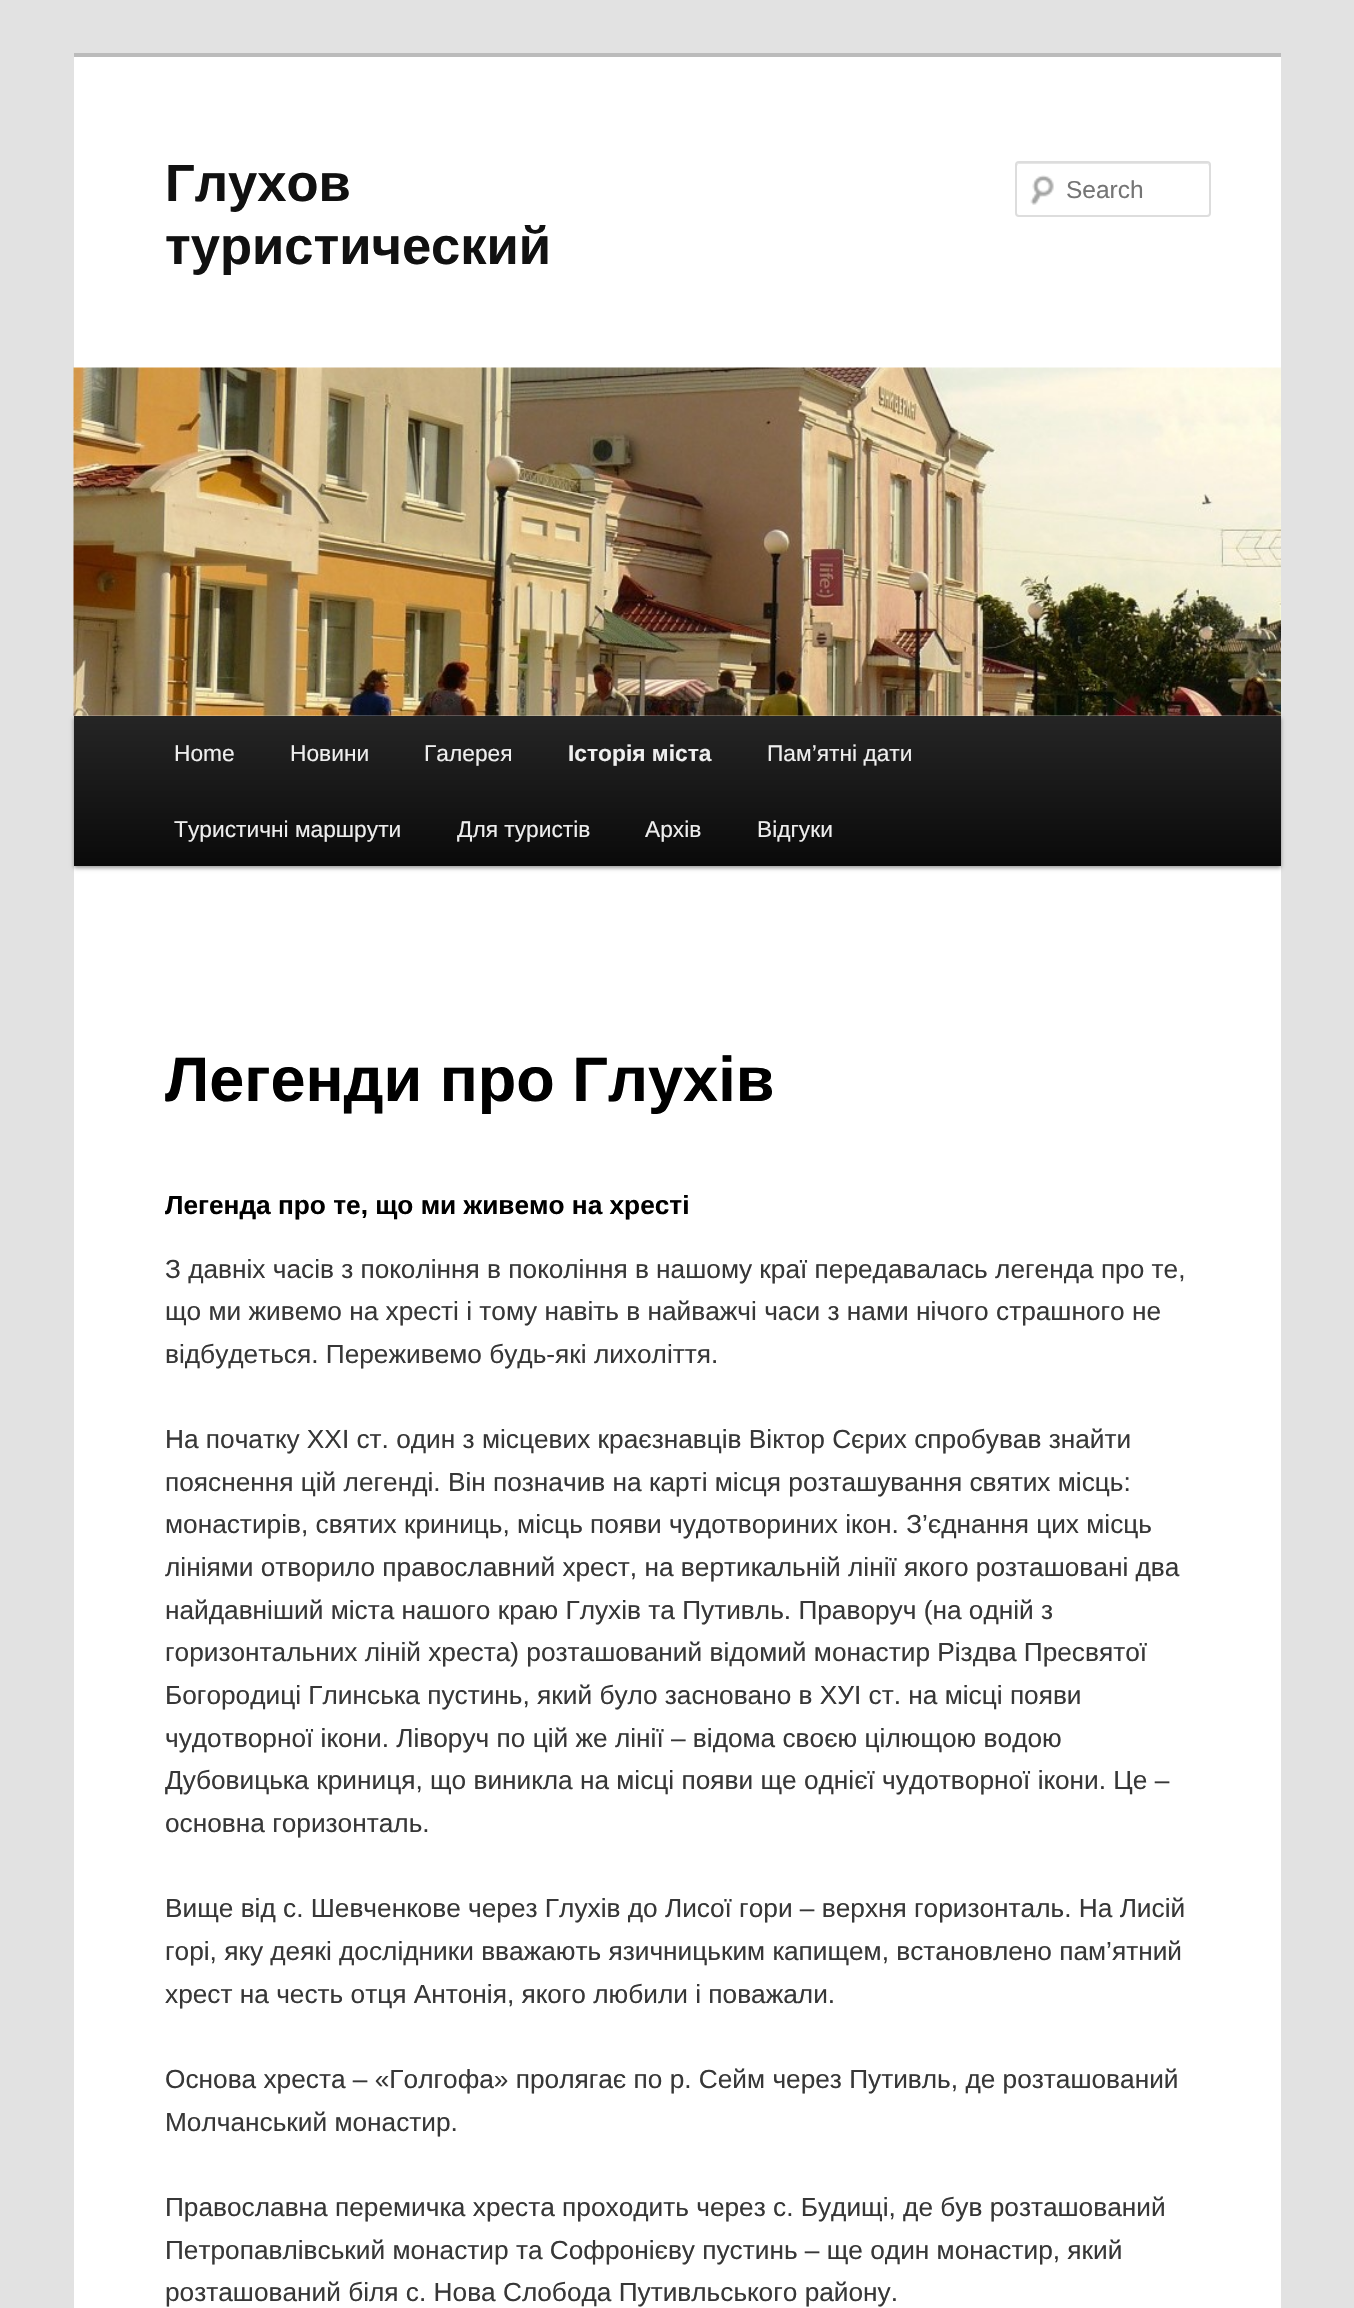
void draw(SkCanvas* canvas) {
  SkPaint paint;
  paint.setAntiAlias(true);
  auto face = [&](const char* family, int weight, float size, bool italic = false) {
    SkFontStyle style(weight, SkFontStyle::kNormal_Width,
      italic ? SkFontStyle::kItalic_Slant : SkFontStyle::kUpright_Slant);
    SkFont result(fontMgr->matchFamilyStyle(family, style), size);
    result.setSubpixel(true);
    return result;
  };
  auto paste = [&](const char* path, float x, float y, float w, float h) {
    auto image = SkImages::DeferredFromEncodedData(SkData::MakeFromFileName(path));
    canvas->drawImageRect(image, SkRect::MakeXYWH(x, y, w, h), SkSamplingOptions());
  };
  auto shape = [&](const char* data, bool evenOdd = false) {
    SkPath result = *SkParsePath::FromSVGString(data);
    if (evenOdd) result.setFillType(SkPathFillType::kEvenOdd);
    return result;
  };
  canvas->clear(0xffe2e2e2);
  paint.setColor(0xffffffff);
  canvas->drawRect(SkRect::MakeXYWH(74, 57, 1207, 2251), paint);
  paint.setColor(0xffbbbbbb);
  canvas->drawRect(SkRect::MakeXYWH(74, 53, 1207, 4), paint);
  paste("img/1.png", 1030, 175, 24, 30);
  paint.setColor(0xffe6e6e6);
  canvas->drawPath(shape("M1018 164H1208L1209 166V165C1209 164 1208 163 1207 163H1019C1018 163 1017 164 1017 165V166Z"), paint);
  paint.setStroke(true);
  paint.setStrokeWidth(2);
  paint.setColor(0xffdddddd);
  canvas->drawRoundRect(SkRect::MakeXYWH(1016, 162, 194, 54), 3, 3, paint);
  paint.setStroke(false);
  paint.setColor(0x66000000);
  paint.setMaskFilter(SkMaskFilter::MakeBlur(kNormal_SkBlurStyle, 2));
  canvas->drawRect(SkRect::MakeXYWH(74, 718, 1207, 150), paint);
  paint.setMaskFilter(nullptr);
  paste("img/2.png", 73, 367, 1208, 349);
  {
    const SkColor colors[] = {0xff252525, 0xff0a0a0a};
    const float stops[] = {0, 1};
    const SkPoint ends[] = {{677, 716}, {677, 866}};
    paint.setShader(SkGradientShader::MakeLinear(ends, colors, stops, 2, SkTileMode::kClamp));
    paint.setAlpha(255);
  }
  canvas->drawRect(SkRect::MakeXYWH(74, 716, 1207, 150), paint);
  auto f0 = face("Liberation Sans", 700, 52.5f);
  paint.setShader(nullptr);
  paint.setColor(0xff111111);
  canvas->drawString("Глухов", 165, 201, f0, paint);
  canvas->drawString("туристический", 165, 264, f0, paint);
  auto f1 = face("Liberation Sans", 400, 24.5f);
  paint.setColor(0xff757575);
  canvas->drawString("Search", 1066, 198, f1, paint);
  auto f2 = face("Liberation Sans", 400, 22.75f);
  paint.setColor(0xffeeeeee);
  {
    const struct { const char* s; float x, y; } items[] = {
      {"Home", 174, 761},
      {"Новини", 290, 761},
      {"Галерея", 424, 761},
    };
    for (auto [s, x, y] : items) {
      canvas->drawString(s, x, y, f2, paint);
    }
  }
  auto f3 = face("Liberation Sans", 700, 22.75f);
  canvas->drawString("Історія міста", 568, 761, f3, paint);
  {
    const struct { const char* s; float x, y; } items[] = {
      {"Пам’ятнi дати", 767, 761},
      {"Туристичні маршрути", 174, 837},
      {"Для туристів", 457, 837},
      {"Архів", 645, 837},
      {"Відгуки", 757, 837},
    };
    for (auto [s, x, y] : items) {
      canvas->drawString(s, x, y, f2, paint);
    }
  }
  auto f4 = face("Liberation Sans", 700, 63);
  paint.setColor(0xff000000);
  canvas->drawString("Легенди про Глухів", 165, 1101, f4, paint);
  auto f5 = face("Liberation Sans", 700, 26.25f);
  canvas->drawString("Легенда про те, що ми живемо на хресті", 165, 1214, f5, paint);
  auto f6 = face("Liberation Sans", 400, 26.25f);
  paint.setColor(0xff373737);
  {
    const struct { const char* s; float x, y; } items[] = {
      {"З давніх часів з покоління в покоління в нашому краї передавалась легенда про те,", 165, 1278},
      {"що ми живемо на хресті і тому навіть в найважчі часи з нами нічого страшного не", 165, 1320},
      {"відбудеться. Переживемо будь-які лихоліття.", 165, 1363},
      {"На початку ХХІ ст. один з місцевих краєзнавців Віктор Сєрих спробував знайти", 165, 1448},
      {"пояснення цій легенді. Він позначив на карті місця розташування святих місць:", 165, 1491},
      {"монастирів, святих криниць, місць появи чудотвориних ікон. З’єднання цих місць", 165, 1533},
      {"лініями отворило православний хрест, на вертикальній лінії якого розташовані два", 165, 1576},
      {"найдавніший міста нашого краю Глухів та Путивль. Праворуч (на одній з", 165, 1619},
      {"горизонтальних ліній хреста) розташований відомий монастир Різдва Пресвятої", 165, 1661},
      {"Богородиці Глинська пустинь, який було засновано в ХУІ ст. на місці появи", 165, 1704},
      {"чудотворної ікони. Ліворуч по цій же лінії – відома своєю цілющою водою", 165, 1747},
      {"Дубовицька криниця, що виникла на місці появи ще однієї чудотворної ікони. Це –", 165, 1789},
      {"основна горизонталь.", 165, 1832},
      {"Вище від с. Шевченкове через Глухів до Лисої гори – верхня горизонталь. На Лисій", 165, 1917},
      {"горі, яку деякі дослідники вважають язичницьким капищем, встановлено пам’ятний", 165, 1960},
      {"хрест на честь отця Антонія, якого любили і поважали.", 165, 2003},
      {"Основа хреста – «Голгофа» пролягає по р. Сейм через Путивль, де розташований", 165, 2088},
      {"Молчанський монастир.", 165, 2131},
      {"Православна перемичка хреста проходить через с. Будищі, де був розташований", 165, 2216},
      {"Петропавлівський монастир та Софронієву пустинь – ще один монастир, який", 165, 2259},
      {"розташований біля с. Нова Слобода Путивльського району.", 165, 2301},
    };
    for (auto [s, x, y] : items) {
      canvas->drawString(s, x, y, f6, paint);
    }
  }
}
